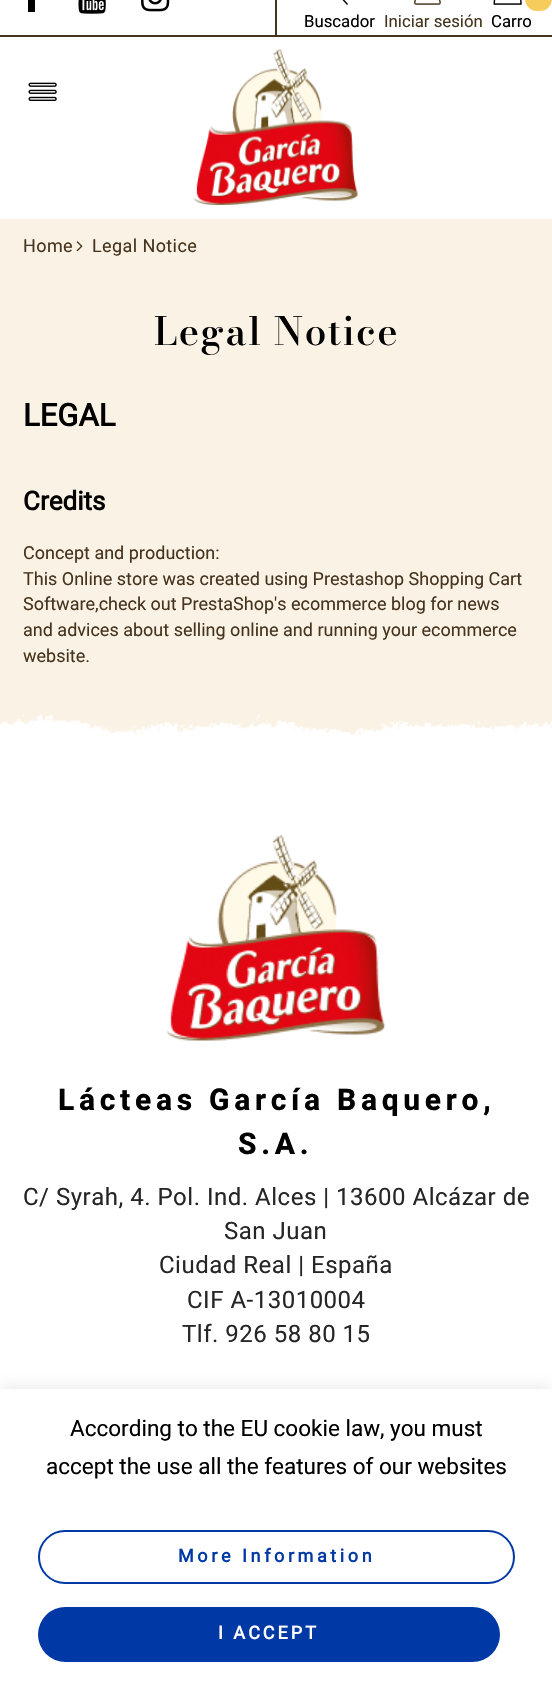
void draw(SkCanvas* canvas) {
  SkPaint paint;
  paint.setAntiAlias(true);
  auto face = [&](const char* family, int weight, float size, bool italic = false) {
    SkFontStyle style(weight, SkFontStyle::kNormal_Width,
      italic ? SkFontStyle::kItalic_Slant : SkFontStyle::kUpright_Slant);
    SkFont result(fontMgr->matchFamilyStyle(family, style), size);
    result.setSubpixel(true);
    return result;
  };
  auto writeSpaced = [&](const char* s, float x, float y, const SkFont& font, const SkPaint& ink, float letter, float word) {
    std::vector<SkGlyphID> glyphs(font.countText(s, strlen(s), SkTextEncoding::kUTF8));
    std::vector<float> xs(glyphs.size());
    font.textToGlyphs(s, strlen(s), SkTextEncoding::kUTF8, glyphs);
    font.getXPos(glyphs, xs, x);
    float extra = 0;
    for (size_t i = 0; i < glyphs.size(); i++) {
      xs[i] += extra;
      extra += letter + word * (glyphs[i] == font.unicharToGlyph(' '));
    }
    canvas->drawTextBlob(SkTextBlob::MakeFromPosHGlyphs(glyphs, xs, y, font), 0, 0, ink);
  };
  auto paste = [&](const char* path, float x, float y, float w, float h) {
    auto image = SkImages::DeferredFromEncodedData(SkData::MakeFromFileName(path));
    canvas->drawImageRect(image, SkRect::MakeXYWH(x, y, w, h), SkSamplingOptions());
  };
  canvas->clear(0xfffbf2e6);
  {
    const struct { float x, y, w, h; SkColor color; } items[] = {
      {0, 0, 552, 219, 0xffffffff},
      {0, 35, 552, 2, 0xff46351e},
      {275, 0, 2, 35, 0xff46351e},
      {28, 0, 7, 12, 0xff000000},
    };
    for (auto [x, y, w, h, color] : items) {
      paint.setColor(color);
      canvas->drawRect(SkRect::MakeXYWH(x, y, w, h), paint);
    }
  }
  paste("img/1.png", 78, 0, 28, 14);
  paste("img/2.png", 141, 0, 29, 12);
  paste("img/3.png", 342, 0, 6, 5);
  paste("img/4.png", 414, 0, 27, 5);
  paste("img/5.png", 493, 0, 29, 5);
  paint.setColor(0xfff7cc5c);
  canvas->drawRoundRect(SkRect::MakeXYWH(525, -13, 27, 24), 13, 13, paint);
  paste("img/6.png", 28, 82, 29, 19);
  paste("img/7.png", 193, 49, 166, 156);
  paste("img/8.png", 76, 241, 7, 11);
  paste("img/9.png", 0, 713, 552, 60);
  paste("img/10.png", 0, 714, 552, 59);
  paint.setColor(0xffffffff);
  canvas->drawRect(SkRect::MakeXYWH(0, 773, 552, 616), paint);
  paste("img/11.png", 166, 835, 220, 206);
  paint.setColor(0x4dacabab);
  paint.setMaskFilter(SkMaskFilter::MakeBlur(kNormal_SkBlurStyle, 7.5f));
  canvas->drawRect(SkRect::MakeXYWH(0, 1388, 552, 294), paint);
  paint.setMaskFilter(nullptr);
  paint.setColor(0xffffffff);
  canvas->drawRect(SkRect::MakeXYWH(0, 1389, 552, 294), paint);
  paint.setStroke(true);
  paint.setStrokeWidth(2);
  paint.setColor(0xff0039a6);
  canvas->drawRoundRect(SkRect::MakeXYWH(39, 1531, 475, 52), 26, 26, paint);
  paint.setStroke(false);
  canvas->drawRoundRect(SkRect::MakeXYWH(38, 1607, 462, 55), 27.5f, 27.5f, paint);
  auto f0 = face("Heebo", 400, 16.75f);
  paint.setColor(0xff000000);
  canvas->drawString("Buscador", 304, 27, f0, paint);
  paint.setColor(0xff46351e);
  canvas->drawString("Iniciar sesión", 384, 27, f0, paint);
  paint.setColor(0xff000000);
  canvas->drawString("Carro", 491, 27, f0, paint);
  auto f1 = face("Heebo", 400, 18);
  paint.setColor(0xff46351e);
  writeSpaced("Home", 23, 252, f1, paint, 0.4f, 0);
  writeSpaced("Legal Notice", 92, 252, f1, paint, 0.4f, 0);
  auto f2 = face("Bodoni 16", 500, 38.5f);
  paint.setColor(0xff000000);
  writeSpaced("Legal Notice", 154, 345, f2, paint, 1.5f, 0);
  auto f3 = face("Heebo", 700, 31);
  canvas->drawString("LEGAL", 23, 426, f3, paint);
  auto f4 = face("Heebo", 700, 26);
  canvas->drawString("Credits", 23, 510, f4, paint);
  paint.setColor(0xff46351e);
  {
    const struct { const char* s; float x, y; } items[] = {
      {"Concept and production:", 23, 559},
      {"This Online store was created using Prestashop Shopping Cart", 23, 585},
      {"Software,check out PrestaShop's ecommerce blog for news", 23, 610},
      {"and advices about selling online and running your ecommerce", 23, 636},
      {"website.", 23, 662},
    };
    for (auto [s, x, y] : items) {
      canvas->drawString(s, x, y, f1, paint);
    }
  }
  auto f5 = face("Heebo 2", 700, 30);
  paint.setColor(0xff000000);
  writeSpaced("Lácteas García Baquero,", 58, 1110, f5, paint, 4.7f, 0);
  writeSpaced("S.A.", 238, 1154, f5, paint, 4.7f, 0);
  auto f6 = face("Heebo", 400, 24);
  paint.setColor(0xff262626);
  {
    const struct { const char* s; float x, y; } items[] = {
      {"C/ Syrah, 4. Pol. Ind. Alces | 13600 Alcázar de", 23, 1205},
      {"San Juan", 224, 1239},
      {"Ciudad Real | España", 159, 1273},
      {"CIF A-13010004", 187, 1308},
      {"Tlf. 926 58 80 15", 182, 1342},
    };
    for (auto [s, x, y] : items) {
      writeSpaced(s, x, y, f6, paint, 0.5f, 0);
    }
  }
  auto f7 = face("Heebo", 400, 22.5f);
  paint.setColor(0xff000000);
  canvas->drawString("According to the EU cookie law, you must", 70, 1436, f7, paint);
  canvas->drawString("accept the use all the features of our websites", 46, 1474, f7, paint);
  auto f8 = face("Heebo", 700, 18);
  paint.setColor(0xff0039a6);
  writeSpaced("More Information", 178, 1562, f8, paint, 3.6f, 0);
  paint.setColor(0xffffffff);
  writeSpaced("I ACCEPT", 218, 1639, f8, paint, 3, 0);
}
